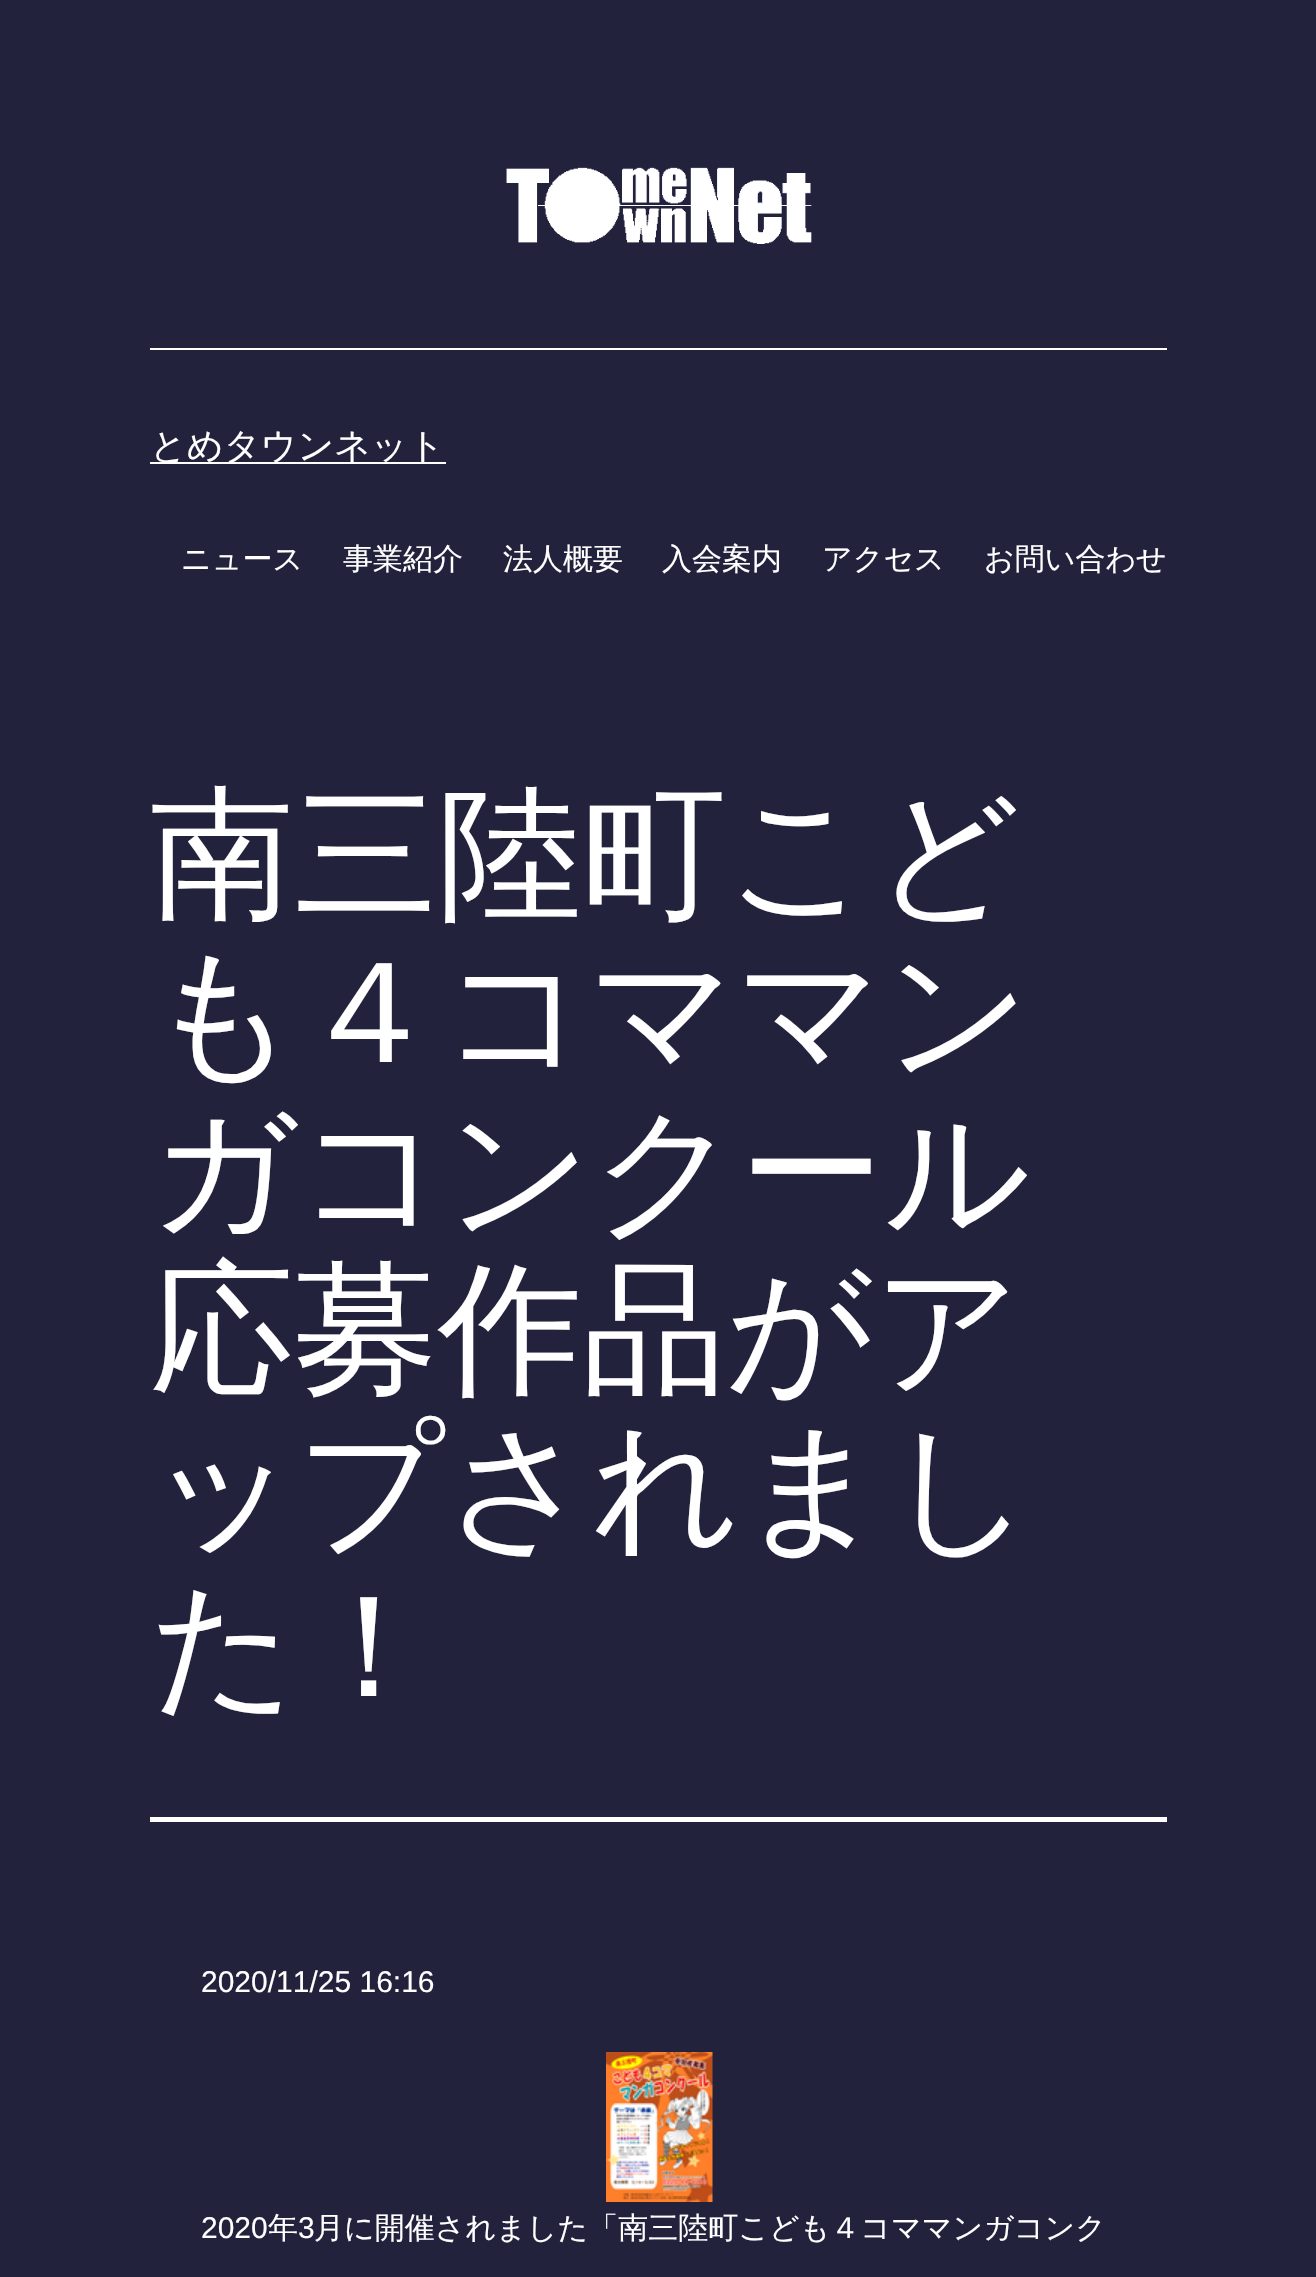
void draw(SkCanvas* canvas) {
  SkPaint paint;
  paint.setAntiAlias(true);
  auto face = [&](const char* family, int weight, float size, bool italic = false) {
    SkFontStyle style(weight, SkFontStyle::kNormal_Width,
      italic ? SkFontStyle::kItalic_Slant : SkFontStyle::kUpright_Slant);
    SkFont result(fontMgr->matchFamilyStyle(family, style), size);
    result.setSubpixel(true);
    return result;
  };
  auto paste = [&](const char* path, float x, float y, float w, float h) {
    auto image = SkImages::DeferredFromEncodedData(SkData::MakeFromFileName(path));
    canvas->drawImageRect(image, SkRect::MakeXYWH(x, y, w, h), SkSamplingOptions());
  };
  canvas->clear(0xff22223d);
  paint.setColor(0xffffffff);
  canvas->drawRect(SkRect::MakeXYWH(150, 348, 1017, 2), paint);
  paste("img/1.png", 506, 167, 306, 77);
  canvas->drawRect(SkRect::MakeXYWH(150, 462, 296, 2), paint);
  canvas->drawRect(SkRect::MakeXYWH(150, 1817, 1017, 5), paint);
  paste("img/2.png", 606, 2052, 107, 150);
  auto f0 = face("WenQuanYi Zen Hei", 500, 36);
  canvas->drawString("とめタウンネット", 150, 458, f0, paint);
  auto f1 = face("WenQuanYi Zen Hei", 500, 30);
  {
    const struct { const char* s; float x, y; } items[] = {
      {"ニュース", 181, 569},
      {"事業紹介", 343, 569},
      {"法人概要", 503, 569},
      {"入会案内", 662, 569},
      {"アクセス", 822, 569},
      {"お問い合わせ", 984, 569},
    };
    for (auto [s, x, y] : items) {
      canvas->drawString(s, x, y, f1, paint);
    }
  }
  auto f2 = face("WenQuanYi Zen Hei", 500, 144);
  {
    const struct { const char* s; float x, y; } items[] = {
      {"南三陸町こど", 150, 904},
      {"も４コママン", 150, 1062},
      {"ガコンクール", 150, 1221},
      {"応募作品がア", 150, 1379},
      {"ップされまし", 150, 1537},
      {"た！", 150, 1696},
    };
    for (auto [s, x, y] : items) {
      canvas->drawString(s, x, y, f2, paint);
    }
  }
  auto f3 = face("Liberation Sans", 400, 30);
  canvas->drawString("2020/11/25 16:16", 201, 1992, f3, paint);
  canvas->drawString("2020", 201, 2238, f3, paint);
  canvas->drawString("年", 268, 2238, f1, paint);
  canvas->drawString("3", 298, 2238, f3, paint);
  canvas->drawString("月に開催されました「南三陸町こども４コママンガコンク", 314, 2238, f1, paint);
}
